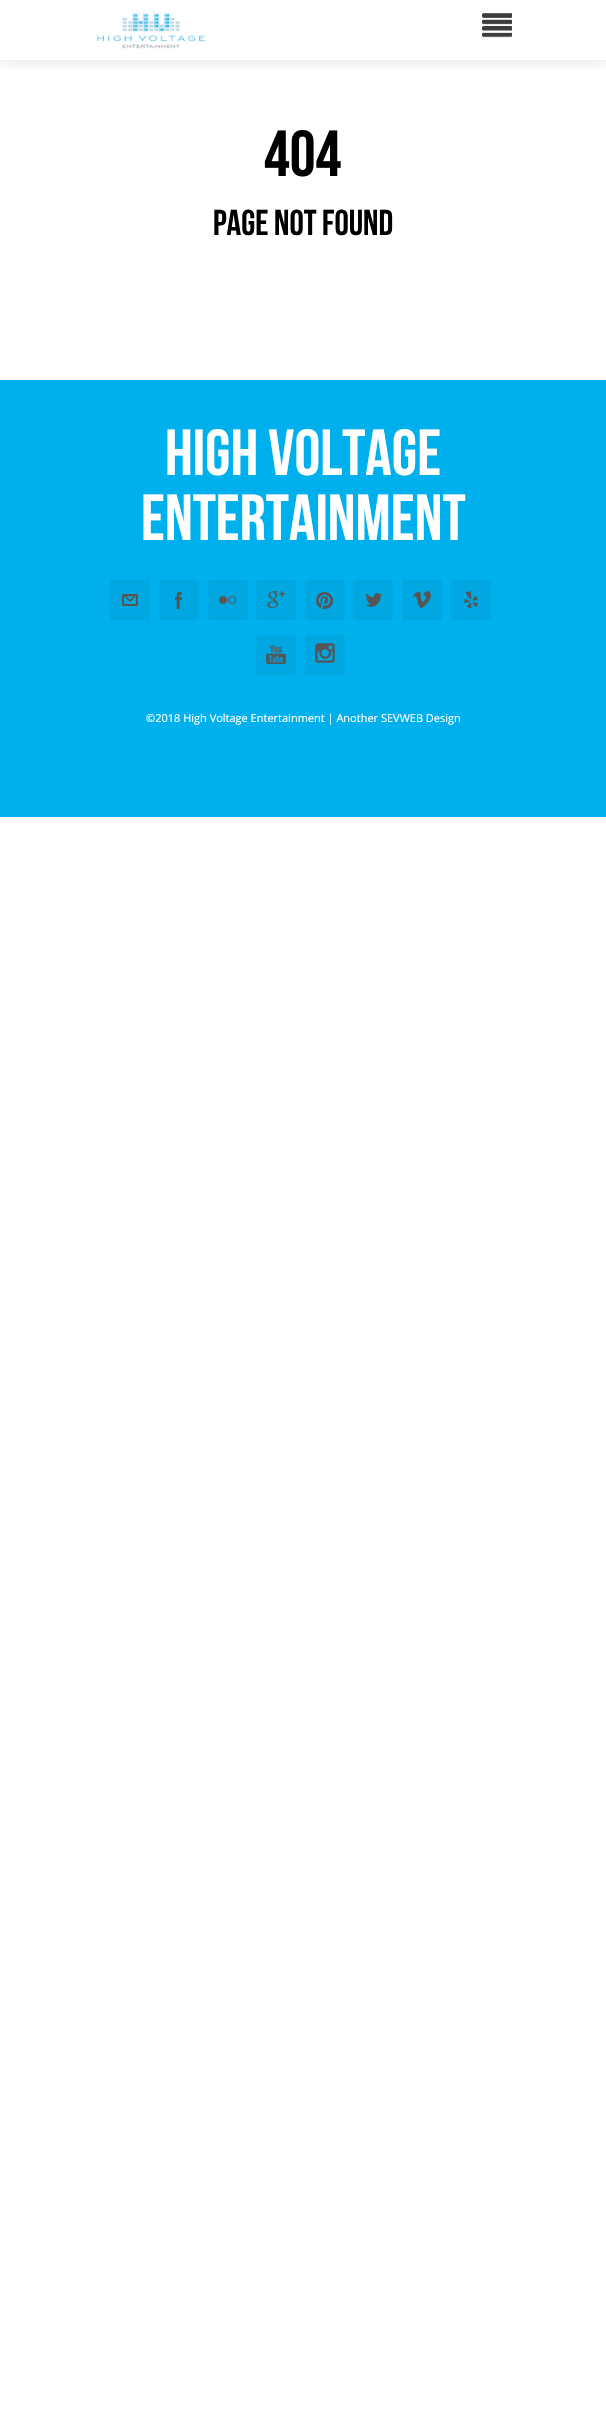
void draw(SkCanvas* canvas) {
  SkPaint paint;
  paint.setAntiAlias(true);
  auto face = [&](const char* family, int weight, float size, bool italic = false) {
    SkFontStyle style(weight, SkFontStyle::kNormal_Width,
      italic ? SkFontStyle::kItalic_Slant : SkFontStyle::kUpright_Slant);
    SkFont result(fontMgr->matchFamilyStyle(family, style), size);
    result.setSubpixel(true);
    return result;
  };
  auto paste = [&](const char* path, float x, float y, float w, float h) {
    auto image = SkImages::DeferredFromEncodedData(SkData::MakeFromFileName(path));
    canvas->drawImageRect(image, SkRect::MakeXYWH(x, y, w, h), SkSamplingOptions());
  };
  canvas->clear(0xffffffff);
  canvas->save();
  canvas->clipRect(SkRect::MakeXYWH(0, 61, 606, 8));
  paint.setColor(0x12000000);
  paint.setMaskFilter(SkMaskFilter::MakeBlur(kNormal_SkBlurStyle, 7.5f));
  canvas->drawRect(SkRect::MakeXYWH(0, 4, 606, 61), paint);
  paint.setMaskFilter(nullptr);
  canvas->restore();
  paint.setColor(0xfff0f0f0);
  canvas->drawRect(SkRect::MakeXYWH(0, 60, 606, 1), paint);
  paste("img/1.png", 96, 10, 110, 39);
  paste("img/2.png", 482, 13, 30, 25);
  paint.setColor(0xff00b0ed);
  canvas->drawRect(SkRect::MakeXYWH(0, 380, 606, 437), paint);
  paint.setColor(0xff00a7e1);
  canvas->drawRoundRect(SkRect::MakeXYWH(110, 580, 40, 40), 3, 3, paint);
  paste("img/3.png", 122, 594, 16, 12);
  canvas->drawRoundRect(SkRect::MakeXYWH(159, 580, 40, 40), 3, 3, paint);
  paste("img/4.png", 175, 592, 7, 17);
  canvas->drawRoundRect(SkRect::MakeXYWH(208, 580, 40, 40), 3, 3, paint);
  paste("img/5.png", 219, 596, 17, 8);
  canvas->drawRoundRect(SkRect::MakeXYWH(256, 580, 40, 40), 3, 3, paint);
  paste("img/6.png", 267, 591, 18, 17);
  canvas->drawRoundRect(SkRect::MakeXYWH(305, 580, 40, 40), 3, 3, paint);
  paste("img/7.png", 316, 592, 17, 17);
  canvas->drawRoundRect(SkRect::MakeXYWH(353, 580, 40, 40), 3, 3, paint);
  paste("img/8.png", 365, 593, 18, 14);
  canvas->drawRoundRect(SkRect::MakeXYWH(402, 580, 40, 40), 3, 3, paint);
  paste("img/9.png", 413, 591, 18, 17);
  canvas->drawRoundRect(SkRect::MakeXYWH(451, 580, 40, 40), 3, 3, paint);
  paste("img/10.png", 464, 591, 14, 17);
  canvas->drawRoundRect(SkRect::MakeXYWH(256, 635, 40, 40), 3, 3, paint);
  paste("img/11.png", 266, 645, 20, 19);
  canvas->drawRoundRect(SkRect::MakeXYWH(305, 635, 40, 40), 3, 3, paint);
  paste("img/12.png", 315, 643, 20, 20);
  auto f0 = face("Bebas Neue", 400, 65);
  paint.setColor(0xff000000);
  canvas->drawString("404", 264, 176, f0, paint);
  auto f1 = face("Bebas Neue", 400, 36);
  canvas->drawString("Page Not Found", 213, 235, f1, paint);
  paint.setColor(0xffffffff);
  canvas->drawString("High Voltage", 165, 475, f0, paint);
  canvas->drawString("Entertainment", 141, 540, f0, paint);
  auto f2 = face("Open Sans", 400, 11);
  canvas->drawString("©2018 High Voltage Entertainment | Another SEVWEB Design", 146, 722, f2, paint);
}
